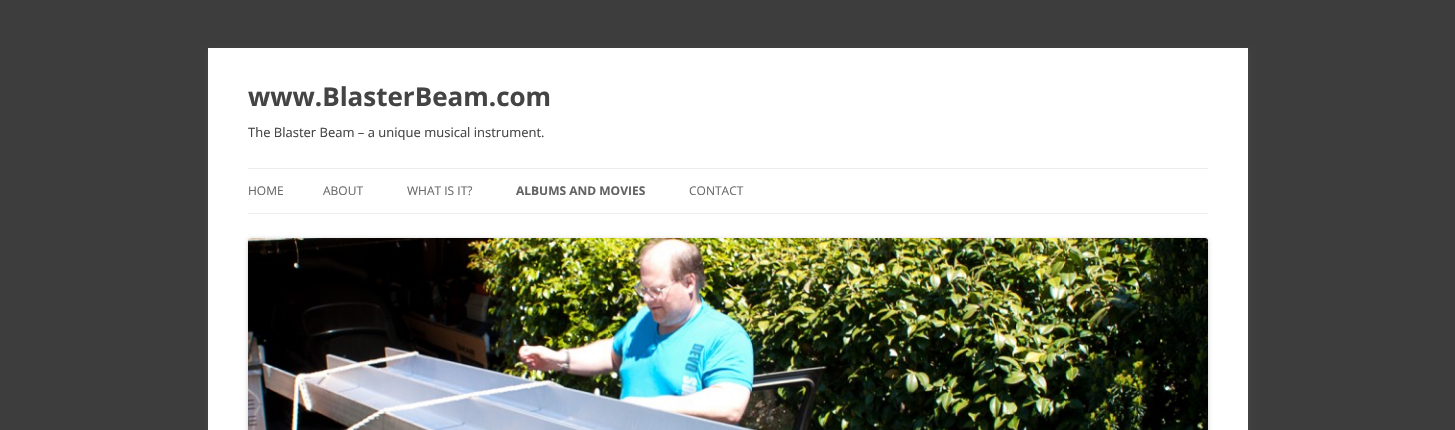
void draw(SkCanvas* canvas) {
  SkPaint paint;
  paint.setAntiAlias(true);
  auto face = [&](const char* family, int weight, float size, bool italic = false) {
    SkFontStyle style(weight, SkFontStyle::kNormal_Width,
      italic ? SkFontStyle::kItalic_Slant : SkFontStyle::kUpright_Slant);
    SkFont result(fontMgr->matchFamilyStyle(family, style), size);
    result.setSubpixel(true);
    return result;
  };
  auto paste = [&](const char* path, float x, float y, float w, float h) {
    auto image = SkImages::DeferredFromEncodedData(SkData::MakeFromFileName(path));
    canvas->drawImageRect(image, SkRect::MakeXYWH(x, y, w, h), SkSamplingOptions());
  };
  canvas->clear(0xff3d3d3d);
  paint.setColor(0x4d646464);
  paint.setMaskFilter(SkMaskFilter::MakeBlur(kNormal_SkBlurStyle, 3));
  canvas->drawRect(SkRect::MakeXYWH(208, 50, 1040, 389), paint);
  paint.setMaskFilter(nullptr);
  {
    const struct { float x, y, w, h; SkColor color; } items[] = {
      {208, 48, 1040, 382, 0xffffffff},
      {248, 168, 960, 1, 0xffededed},
      {248, 213, 960, 1, 0xffededed},
    };
    for (auto [x, y, w, h, color] : items) {
      paint.setColor(color);
      canvas->drawRect(SkRect::MakeXYWH(x, y, w, h), paint);
    }
  }
  paint.setColor(0x33000000);
  paint.setMaskFilter(SkMaskFilter::MakeBlur(kNormal_SkBlurStyle, 2));
  canvas->drawRoundRect(SkRect::MakeXYWH(248, 239, 960, 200), 3, 3, paint);
  paint.setMaskFilter(nullptr);
  paste("img/1.png", 248, 238, 960, 192);
  auto f0 = face("Open Sans", 700, 26);
  paint.setColor(0xff444444);
  canvas->drawString("www.BlasterBeam.com", 248, 106, f0, paint);
  auto f1 = face("Open Sans", 400, 13);
  canvas->drawString("The Blaster Beam – a unique musical instrument.", 248, 137, f1, paint);
  auto f2 = face("Open Sans", 400, 12);
  paint.setColor(0xff6a6a6a);
  {
    const struct { const char* s; float x, y; } items[] = {
      {"HOME", 248, 195},
      {"ABOUT", 323, 195},
      {"WHAT IS IT?", 407, 195},
    };
    for (auto [s, x, y] : items) {
      canvas->drawString(s, x, y, f2, paint);
    }
  }
  auto f3 = face("Open Sans", 700, 12);
  paint.setColor(0xff636363);
  canvas->drawString("ALBUMS AND MOVIES", 516, 195, f3, paint);
  paint.setColor(0xff6a6a6a);
  canvas->drawString("CONTACT", 689, 195, f2, paint);
}
